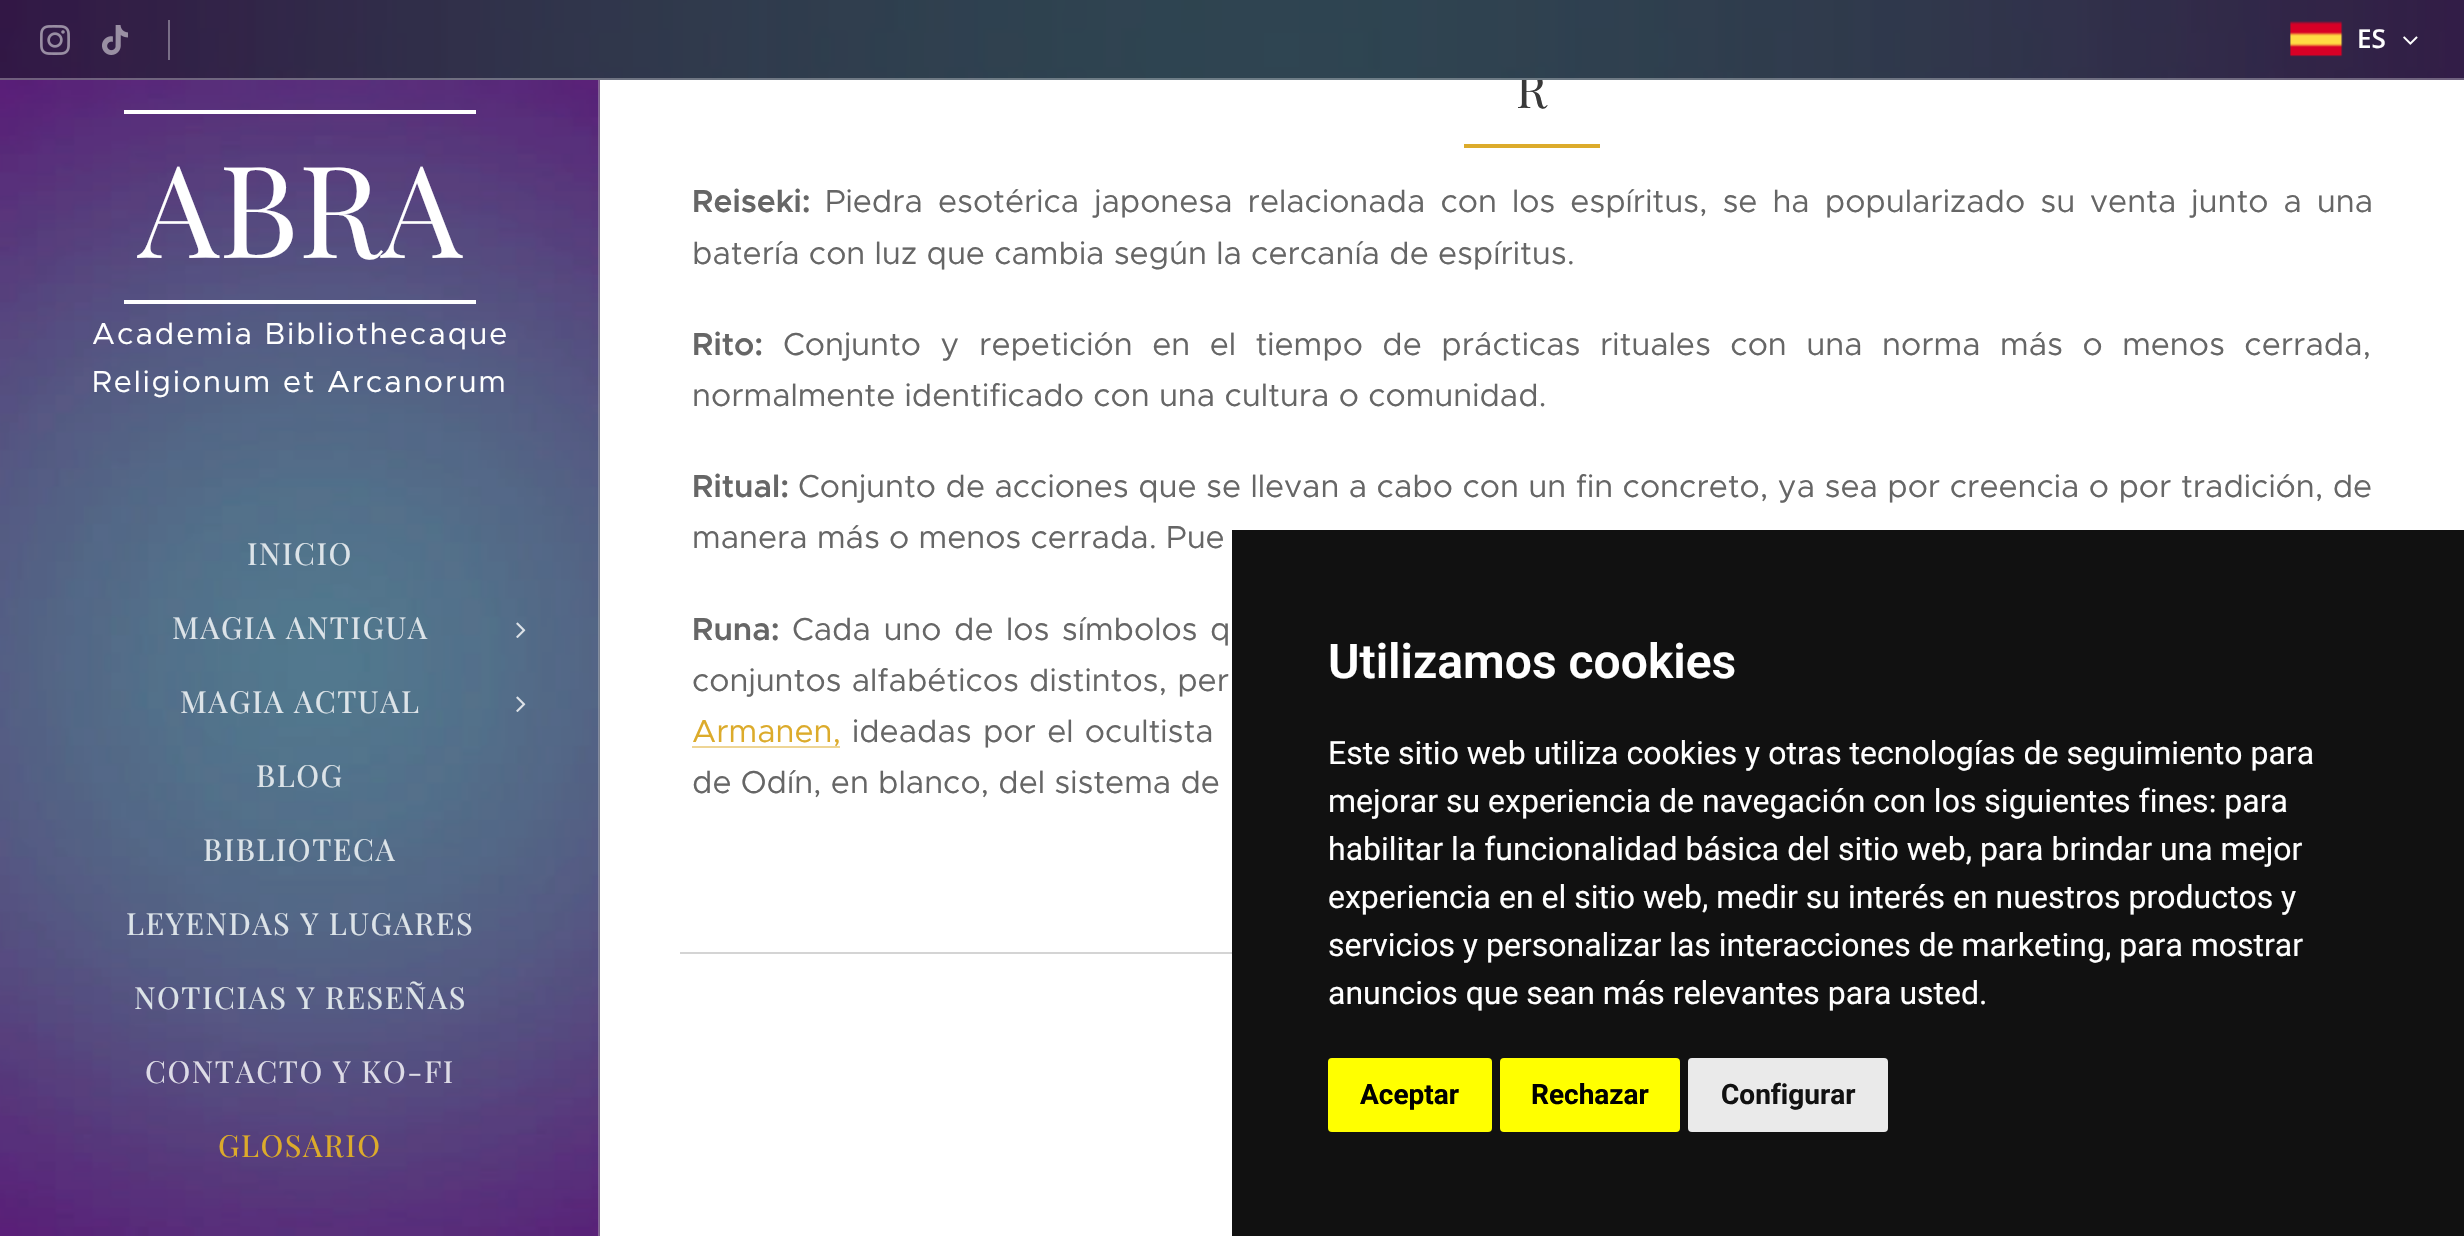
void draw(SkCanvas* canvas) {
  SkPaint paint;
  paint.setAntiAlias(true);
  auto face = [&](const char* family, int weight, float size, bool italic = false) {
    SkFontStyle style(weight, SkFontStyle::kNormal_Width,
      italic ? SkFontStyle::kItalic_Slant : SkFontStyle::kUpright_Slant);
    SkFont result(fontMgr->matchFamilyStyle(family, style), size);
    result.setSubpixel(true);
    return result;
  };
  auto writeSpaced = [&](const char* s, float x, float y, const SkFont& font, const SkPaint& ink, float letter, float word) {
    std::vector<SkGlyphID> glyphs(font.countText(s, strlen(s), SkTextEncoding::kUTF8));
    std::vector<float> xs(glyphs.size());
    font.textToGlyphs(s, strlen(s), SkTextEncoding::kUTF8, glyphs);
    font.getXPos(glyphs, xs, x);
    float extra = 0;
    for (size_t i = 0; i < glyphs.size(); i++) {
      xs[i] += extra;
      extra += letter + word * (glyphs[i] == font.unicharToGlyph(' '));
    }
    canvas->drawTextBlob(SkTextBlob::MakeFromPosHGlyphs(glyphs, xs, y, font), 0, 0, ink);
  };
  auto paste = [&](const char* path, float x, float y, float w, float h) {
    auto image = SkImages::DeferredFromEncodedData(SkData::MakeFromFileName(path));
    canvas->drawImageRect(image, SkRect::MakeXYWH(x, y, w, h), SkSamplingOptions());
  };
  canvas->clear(0xffffffff);
  paint.setColor(0xff1b1b1b);
  canvas->drawRect(SkRect::MakeXYWH(598, 80, 2, 1156), paint);
  paste("img/6.png", 0, 80, 600, 1156);
  paint.setColor(0xffffffff);
  canvas->drawRect(SkRect::MakeXYWH(124, 110, 352, 4), paint);
  canvas->drawRect(SkRect::MakeXYWH(124, 300, 352, 4), paint);
  paste("img/7.png", 516, 622, 10, 16);
  paste("img/8.png", 516, 696, 10, 16);
  {
    const struct { float x, y, w, h; SkColor color; } items[] = {
      {598, 80, 2, 1156, 0x4dffffff},
      {1464, 144, 136, 4, 0xffdcab2b},
      {692, 746, 148, 2, 0xffeed595},
      {680, 952, 552, 2, 0xffd4d4d4},
      {1232, 530, 1232, 706, 0xff111111},
    };
    for (auto [x, y, w, h, color] : items) {
      paint.setColor(color);
      canvas->drawRect(SkRect::MakeXYWH(x, y, w, h), paint);
    }
  }
  paint.setColor(0xffffff00);
  canvas->drawRoundRect(SkRect::MakeXYWH(1328, 1058, 164, 74), 4, 4, paint);
  canvas->drawRoundRect(SkRect::MakeXYWH(1500, 1058, 180, 74), 4, 4, paint);
  paint.setColor(0xffeaeaea);
  canvas->drawRoundRect(SkRect::MakeXYWH(1688, 1058, 200, 74), 4, 4, paint);
  auto f0 = face("Playfair Display", 400, 128);
  paint.setColor(0xffffffff);
  canvas->drawString("ABRA", 138, 258, f0, paint);
  auto f1 = face("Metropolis", 400, 30.4f);
  writeSpaced("Academia Bibliothecaque", 92, 344, f1, paint, 2, 0);
  writeSpaced("Religionum et Arcanorum", 92, 392, f1, paint, 2, 0);
  auto f2 = face("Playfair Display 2", 400, 30.4f);
  paint.setColor(0xffdce3e8);
  {
    const struct { const char* s; float x, y; } items[] = {
      {"INICIO", 247, 565},
      {"MAGIA ANTIGUA", 172, 639},
      {"MAGIA ACTUAL", 180, 713},
      {"BLOG", 256, 787},
      {"BIBLIOTECA", 203, 861},
      {"LEYENDAS Y LUGARES", 126, 935},
      {"NOTICIAS Y RESEÑAS", 134, 1009},
    };
    for (auto [s, x, y] : items) {
      writeSpaced(s, x, y, f2, paint, 1.5f, 0);
    }
  }
  paint.setColor(0xffdddbe6);
  writeSpaced("CONTACTO Y KO-FI", 145, 1083, f2, paint, 1.5f, 0);
  paint.setColor(0xffdcab2b);
  writeSpaced("GLOSARIO", 218, 1157, f2, paint, 1.5f, 0);
  auto f3 = face("Playfair Display", 400, 48);
  paint.setColor(0xff393939);
  canvas->drawString("R", 1516, 108, f3, paint);
  paste("img/1.png", 0, 0, 2464, 80);
  paint.setColor(0x4dffffff);
  canvas->drawRect(SkRect::MakeXYWH(0, 78, 2464, 2), paint);
  paste("img/5.png", 2403, 36, 15, 9);
  paste("img/4.png", 2290, 21, 53, 36);
  auto f4 = face("Open Sans", 600, 26);
  paint.setColor(0xffffffff);
  canvas->drawString("ES", 2357, 48, f4, paint);
  paint.setColor(0xff796e87);
  canvas->drawRect(SkRect::MakeXYWH(168, 20, 2, 40), paint);
  paste("img/3.png", 102, 25, 26, 30);
  paste("img/2.png", 40, 25, 30, 30);
  auto f5 = face("Metropolis", 600, 32);
  paint.setColor(0xff666666);
  canvas->drawString("Reiseki:", 692, 212, f5, paint);
  auto f6 = face("Metropolis", 400, 32);
  writeSpaced("Piedra esotérica japonesa relacionada con los espíritus, se ha popularizado su venta junto a una", 825, 212, f6, paint, 0, 5.75f);
  canvas->drawString("batería con luz que cambia según la cercanía de espíritus.", 692, 264, f6, paint);
  canvas->drawString("Rito:", 692, 355, f5, paint);
  writeSpaced("Conjunto y repetición en el tiempo de prácticas rituales con una norma más o menos cerrada,", 783, 355, f6, paint, 0, 10.25f);
  canvas->drawString("normalmente identificado con una cultura o comunidad.", 692, 406, f6, paint);
  canvas->drawString("Ritual:", 692, 497, f5, paint);
  writeSpaced("Conjunto de acciones que se llevan a cabo con un fin concreto, ya sea por creencia o por tradición, de", 798, 497, f6, paint, 0, 0.2f);
  canvas->drawString("manera más o menos cerrada. Pue", 692, 548, f6, paint);
  canvas->drawString("Runa:", 692, 640, f5, paint);
  writeSpaced("Cada uno de los símbolos q", 792, 640, f6, paint, 0, 3.25f);
  writeSpaced("conjuntos alfabéticos distintos, per", 692, 691, f6, paint, 0, 1);
  paint.setColor(0xffdcab2b);
  canvas->drawString("Armanen,", 692, 742, f6, paint);
  paint.setColor(0xff666666);
  writeSpaced("ideadas por el ocultista", 852, 742, f6, paint, 0, 2);
  canvas->drawString("de Odín, en blanco, del sistema de", 692, 793, f6, paint);
  auto f7 = face("Roboto", 600, 48);
  paint.setColor(0xffffffff);
  canvas->drawString("Utilizamos cookies", 1328, 678, f7, paint);
  auto f8 = face("Roboto", 400, 32);
  {
    const struct { const char* s; float x, y; } items[] = {
      {"Este sitio web utiliza cookies y otras tecnologías de seguimiento para", 1328, 764},
      {"mejorar su experiencia de navegación con los siguientes fines: para", 1328, 812},
      {"habilitar la funcionalidad básica del sitio web, para brindar una mejor", 1328, 860},
      {"experiencia en el sitio web, medir su interés en nuestros productos y", 1328, 908},
      {"servicios y personalizar las interacciones de marketing, para mostrar", 1328, 956},
      {"anuncios que sean más relevantes para usted.", 1328, 1004},
    };
    for (auto [s, x, y] : items) {
      canvas->drawString(s, x, y, f8, paint);
    }
  }
  auto f9 = face("Roboto", 700, 28);
  paint.setColor(0xff000000);
  canvas->drawString("Aceptar", 1360, 1104, f9, paint);
  canvas->drawString("Rechazar", 1531, 1104, f9, paint);
  paint.setColor(0xff111111);
  canvas->drawString("Configurar", 1721, 1104, f9, paint);
}
